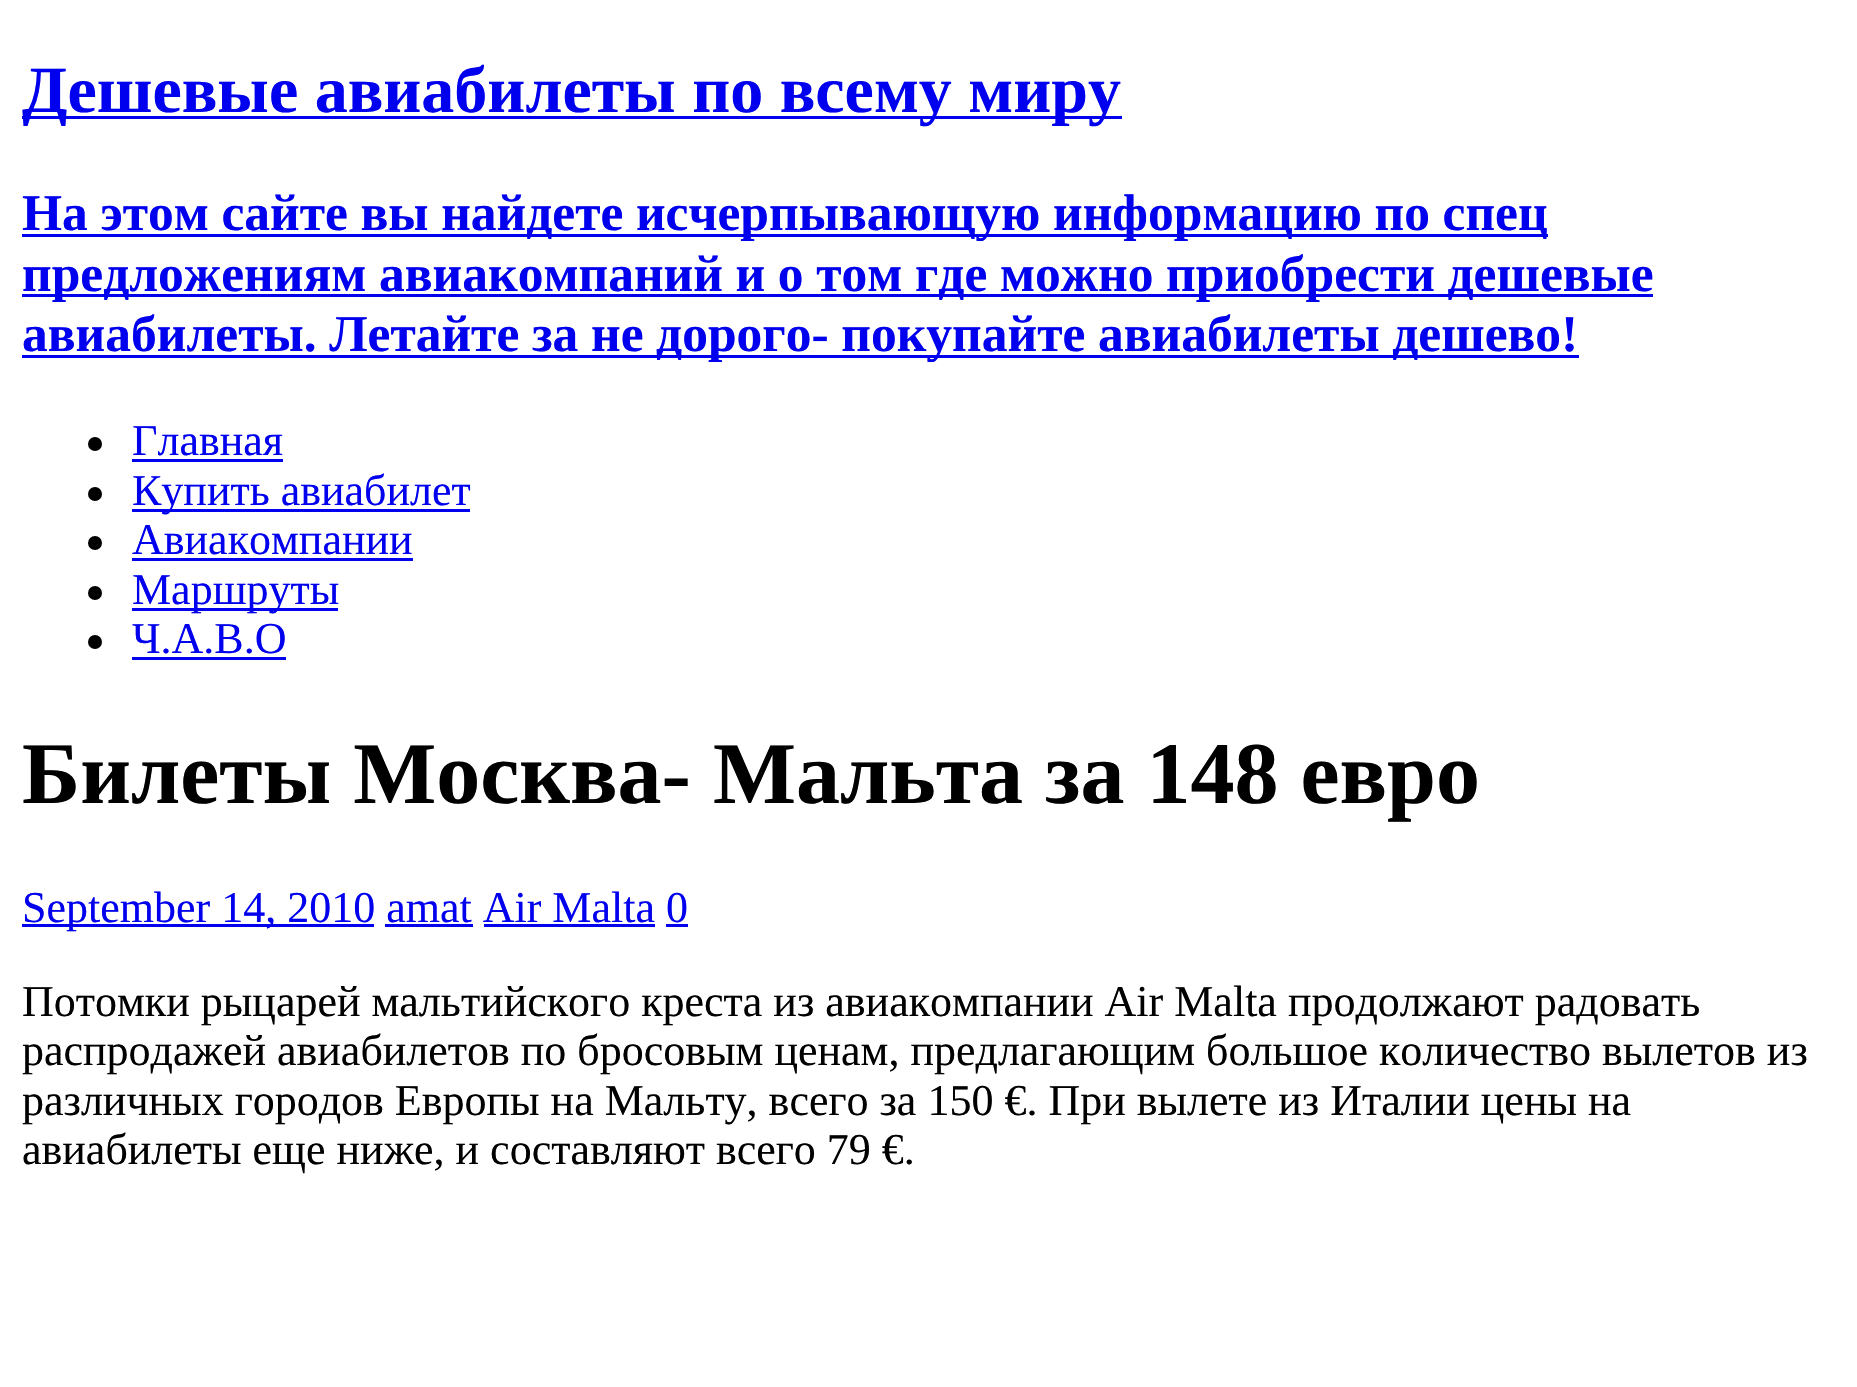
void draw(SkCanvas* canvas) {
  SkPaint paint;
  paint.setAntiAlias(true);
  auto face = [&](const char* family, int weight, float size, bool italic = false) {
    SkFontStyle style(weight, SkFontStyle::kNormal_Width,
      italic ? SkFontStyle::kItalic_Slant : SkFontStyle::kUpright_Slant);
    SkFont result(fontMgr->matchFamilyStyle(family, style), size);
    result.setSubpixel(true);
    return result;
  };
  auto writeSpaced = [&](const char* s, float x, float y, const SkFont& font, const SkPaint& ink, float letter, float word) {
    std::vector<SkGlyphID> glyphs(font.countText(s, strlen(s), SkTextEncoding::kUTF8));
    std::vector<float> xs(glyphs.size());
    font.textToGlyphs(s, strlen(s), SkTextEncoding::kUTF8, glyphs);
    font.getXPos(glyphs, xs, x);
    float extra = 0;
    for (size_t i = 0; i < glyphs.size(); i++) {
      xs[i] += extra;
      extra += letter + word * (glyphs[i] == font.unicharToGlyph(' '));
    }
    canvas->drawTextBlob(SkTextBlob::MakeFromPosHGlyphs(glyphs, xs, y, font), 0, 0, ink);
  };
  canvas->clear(0xffffffff);
  {
    const struct { float x, y, w, h; SkColor color; } items[] = {
      {22, 116, 1100, 3, 0xff0000ee},
      {22, 234, 1526, 3, 0xff0000ee},
      {22, 294, 1631, 3, 0xff0000ee},
      {22, 355, 1557, 3, 0xff0000ee},
    };
    for (auto [x, y, w, h, color] : items) {
      paint.setColor(color);
      canvas->drawRect(SkRect::MakeXYWH(x, y, w, h), paint);
    }
  }
  paint.setColor(0xff000000);
  canvas->drawCircle(95, 444, 7, paint);
  paint.setColor(0xff0000ee);
  canvas->drawRect(SkRect::MakeXYWH(132, 459, 151, 3), paint);
  paint.setColor(0xff000000);
  canvas->drawCircle(95, 494, 7, paint);
  paint.setColor(0xff0000ee);
  canvas->drawRect(SkRect::MakeXYWH(132, 509, 338, 3), paint);
  paint.setColor(0xff000000);
  canvas->drawCircle(95, 543, 7, paint);
  paint.setColor(0xff0000ee);
  canvas->drawRect(SkRect::MakeXYWH(132, 558, 281, 3), paint);
  paint.setColor(0xff000000);
  canvas->drawCircle(95, 593, 7, paint);
  paint.setColor(0xff0000ee);
  canvas->drawRect(SkRect::MakeXYWH(132, 608, 206, 3), paint);
  paint.setColor(0xff000000);
  canvas->drawCircle(95, 642, 7, paint);
  {
    const struct { float x, y, w, h; SkColor color; } items[] = {
      {132, 657, 154, 3, 0xff0000ee},
      {22, 924, 352, 3, 0xff0000ee},
      {385, 924, 88, 3, 0xff0000ee},
      {484, 924, 171, 3, 0xff0000ee},
      {666, 924, 22, 3, 0xff0000ee},
    };
    for (auto [x, y, w, h, color] : items) {
      paint.setColor(color);
      canvas->drawRect(SkRect::MakeXYWH(x, y, w, h), paint);
    }
  }
  auto f0 = face("Liberation Serif", 700, 66);
  canvas->drawString("Дешевые авиабилеты по всему миру", 22, 112, f0, paint);
  auto f1 = face("Liberation Serif", 700, 51.5f);
  {
    const struct { const char* s; float x, y; } items[] = {
      {"На этом сайте вы найдете исчерпывающую информацию по спец", 22, 230},
      {"предложениям авиакомпаний и о том где можно приобрести дешевые", 22, 291},
      {"авиабилеты. Летайте за не дорого- покупайте авиабилеты дешево!", 22, 351},
    };
    for (auto [s, x, y] : items) {
      writeSpaced(s, x, y, f1, paint, 0, -0.25f);
    }
  }
  auto f2 = face("Liberation Serif", 400, 44);
  {
    const struct { const char* s; float x, y; } items[] = {
      {"Главная", 132, 455},
      {"Купить авиабилет", 132, 505},
      {"Авиакомпании", 132, 554},
      {"Маршруты", 132, 604},
      {"Ч.А.В.О", 132, 653},
    };
    for (auto [s, x, y] : items) {
      canvas->drawString(s, x, y, f2, paint);
    }
  }
  auto f3 = face("Liberation Serif", 700, 88);
  paint.setColor(0xff000000);
  canvas->drawString("Билеты Москва- Мальта за 148 евро", 22, 803, f3, paint);
  paint.setColor(0xff0000ee);
  canvas->drawString("September 14, 2010 amat Air Malta 0", 22, 922, f2, paint);
  paint.setColor(0xff000000);
  {
    const struct { const char* s; float x, y; } items[] = {
      {"Потомки рыцарей мальтийского креста из авиакомпании Air Malta продолжают радовать", 22, 1016},
      {"распродажей авиабилетов по бросовым ценам, предлагающим большое количество вылетов из", 22, 1065},
      {"различных городов Европы на Мальту, всего за 150 €. При вылете из Италии цены на", 22, 1115},
      {"авиабилеты еще ниже, и составляют всего 79 €.", 22, 1164},
    };
    for (auto [s, x, y] : items) {
      canvas->drawString(s, x, y, f2, paint);
    }
  }
}
